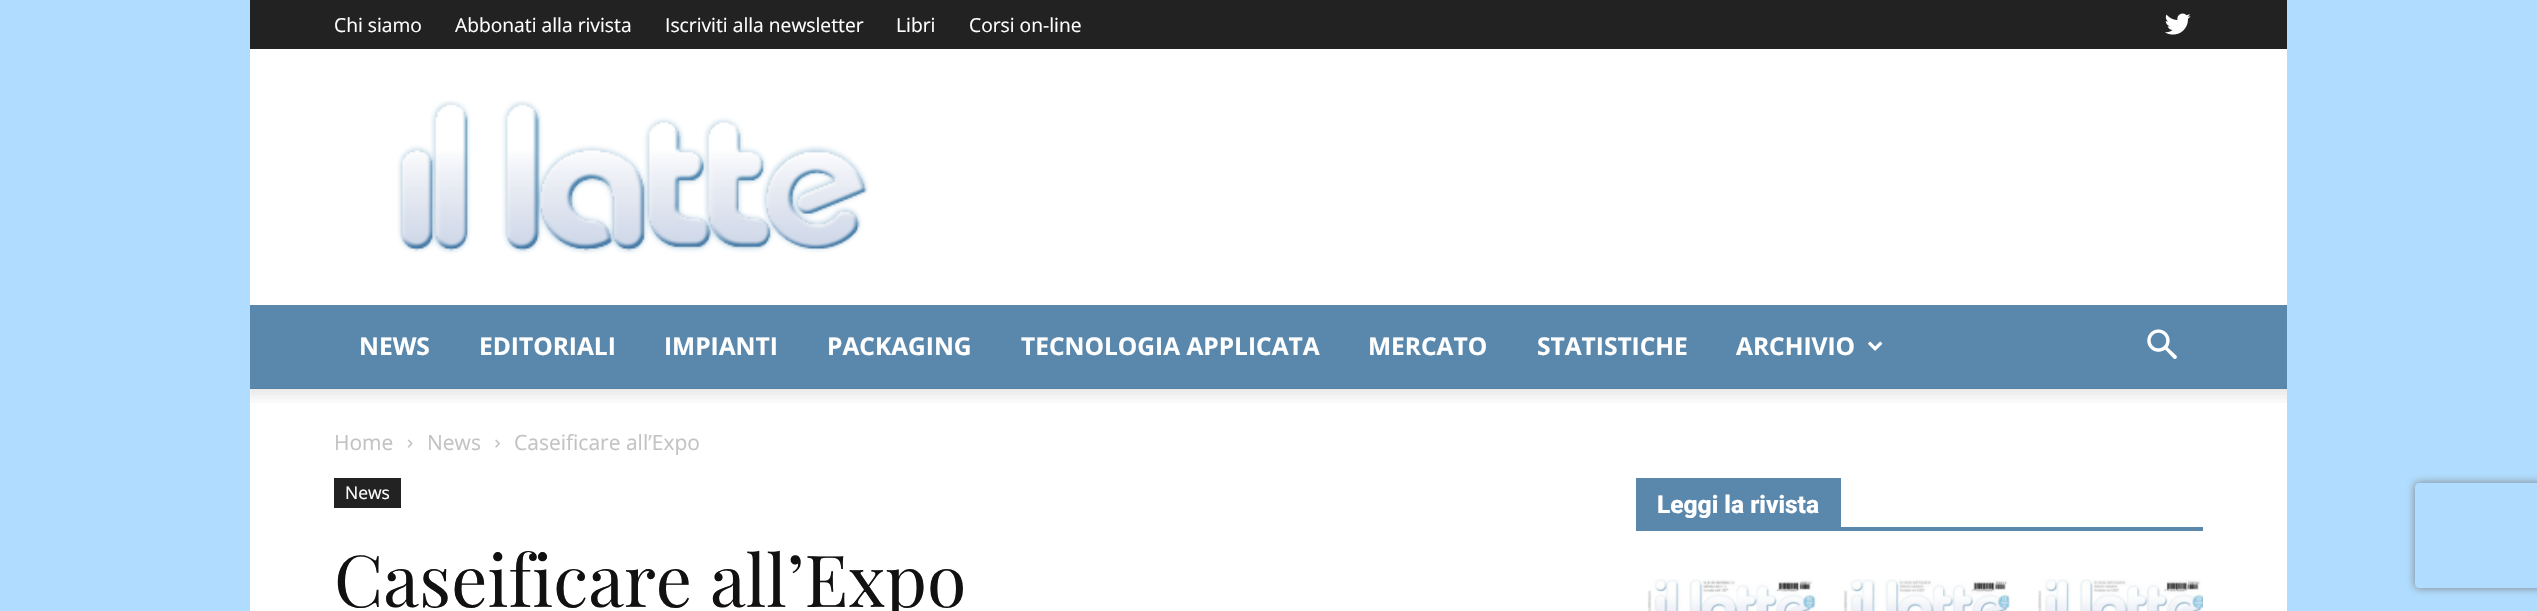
void draw(SkCanvas* canvas) {
  SkPaint paint;
  paint.setAntiAlias(true);
  auto face = [&](const char* family, int weight, float size, bool italic = false) {
    SkFontStyle style(weight, SkFontStyle::kNormal_Width,
      italic ? SkFontStyle::kItalic_Slant : SkFontStyle::kUpright_Slant);
    SkFont result(fontMgr->matchFamilyStyle(family, style), size);
    result.setSubpixel(true);
    return result;
  };
  auto paste = [&](const char* path, float x, float y, float w, float h) {
    auto image = SkImages::DeferredFromEncodedData(SkData::MakeFromFileName(path));
    canvas->drawImageRect(image, SkRect::MakeXYWH(x, y, w, h), SkSamplingOptions());
  };
  auto shape = [&](const char* data, bool evenOdd = false) {
    SkPath result = *SkParsePath::FromSVGString(data);
    if (evenOdd) result.setFillType(SkPathFillType::kEvenOdd);
    return result;
  };
  canvas->clear(0xffb0ddff);
  paint.setColor(0xff222222);
  canvas->drawRect(SkRect::MakeXYWH(250, 0, 2037, 49), paint);
  paste("img/1.png", 2165, 13, 26, 22);
  paint.setColor(0xffffffff);
  canvas->drawRect(SkRect::MakeXYWH(250, 49, 2037, 256), paint);
  paste("img/2.png", 397, 100, 472, 154);
  paint.setColor(0xff5a87ac);
  canvas->drawRect(SkRect::MakeXYWH(250, 305, 2037, 84), paint);
  paste("img/3.png", 1868, 341, 15, 10);
  paste("img/4.png", 2147, 329, 30, 30);
  paint.setColor(0xffffffff);
  canvas->drawRect(SkRect::MakeXYWH(250, 389, 2037, 222), paint);
  paste("img/5.png", 250, 388, 2037, 15);
  paste("img/6.png", 407, 439, 6, 9);
  paste("img/7.png", 495, 439, 5, 9);
  {
    const struct { float x, y, w, h; SkColor color; } items[] = {
      {334, 478, 67, 30, 0xff222222},
      {1636, 527, 567, 4, 0xff5a87ac},
      {1636, 478, 205, 49, 0xff5a87ac},
    };
    for (auto [x, y, w, h, color] : items) {
      paint.setColor(color);
      canvas->drawRect(SkRect::MakeXYWH(x, y, w, h), paint);
    }
  }
  paste("img/8.png", 1647, 579, 169, 32);
  paste("img/9.png", 1843, 579, 167, 32);
  paste("img/10.png", 2038, 579, 165, 32);
  canvas->save();
  canvas->clipPath(shape("M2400 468H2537V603H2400ZM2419 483H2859C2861 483 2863 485 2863 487V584C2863 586 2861 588 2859 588H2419C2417 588 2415 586 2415 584V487C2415 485 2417 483 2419 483Z", true), true);
  paint.setColor(0xff808080);
  paint.setMaskFilter(SkMaskFilter::MakeBlur(kNormal_SkBlurStyle, 4.5f));
  canvas->drawRoundRect(SkRect::MakeXYWH(2415, 483, 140, 105), 4, 4, paint);
  paint.setMaskFilter(nullptr);
  canvas->restore();
  auto f0 = face("Open Sans", 400, 19.25f);
  paint.setColor(0xffffffff);
  {
    const struct { const char* s; float x, y; } items[] = {
      {"Chi siamo", 334, 32},
      {"Abbonati alla rivista", 455, 32},
      {"Iscriviti alla newsletter", 665, 32},
      {"Libri", 896, 32},
      {"Corsi on-line", 969, 32},
    };
    for (auto [s, x, y] : items) {
      canvas->drawString(s, x, y, f0, paint);
    }
  }
  auto f1 = face("Open Sans", 700, 24.5f);
  {
    const struct { const char* s; float x, y; } items[] = {
      {"NEWS", 359, 355},
      {"EDITORIALI", 479, 355},
      {"IMPIANTI", 664, 355},
      {"PACKAGING", 827, 355},
      {"TECNOLOGIA APPLICATA", 1021, 355},
      {"MERCATO", 1368, 355},
      {"STATISTICHE", 1537, 355},
      {"ARCHIVIO", 1736, 355},
    };
    for (auto [s, x, y] : items) {
      canvas->drawString(s, x, y, f1, paint);
    }
  }
  auto f2 = face("Open Sans", 400, 21);
  paint.setColor(0xffc3c3c3);
  {
    const struct { const char* s; float x, y; } items[] = {
      {"Home", 334, 450},
      {"News", 427, 450},
      {"Caseificare all’Expo", 514, 450},
    };
    for (auto [s, x, y] : items) {
      canvas->drawString(s, x, y, f2, paint);
    }
  }
  auto f3 = face("Open Sans", 400, 17.5f);
  paint.setColor(0xffffffff);
  canvas->drawString("News", 345, 499, f3, paint);
  auto f4 = face("Playfair Display", 400, 71.75f);
  paint.setColor(0xff111111);
  canvas->drawString("Caseificare all’Expo", 334, 607, f4, paint);
  auto f5 = face("Roboto", 800, 24.5f);
  paint.setColor(0xffffffff);
  canvas->drawString("Leggi la rivista", 1657, 513, f5, paint);
}
